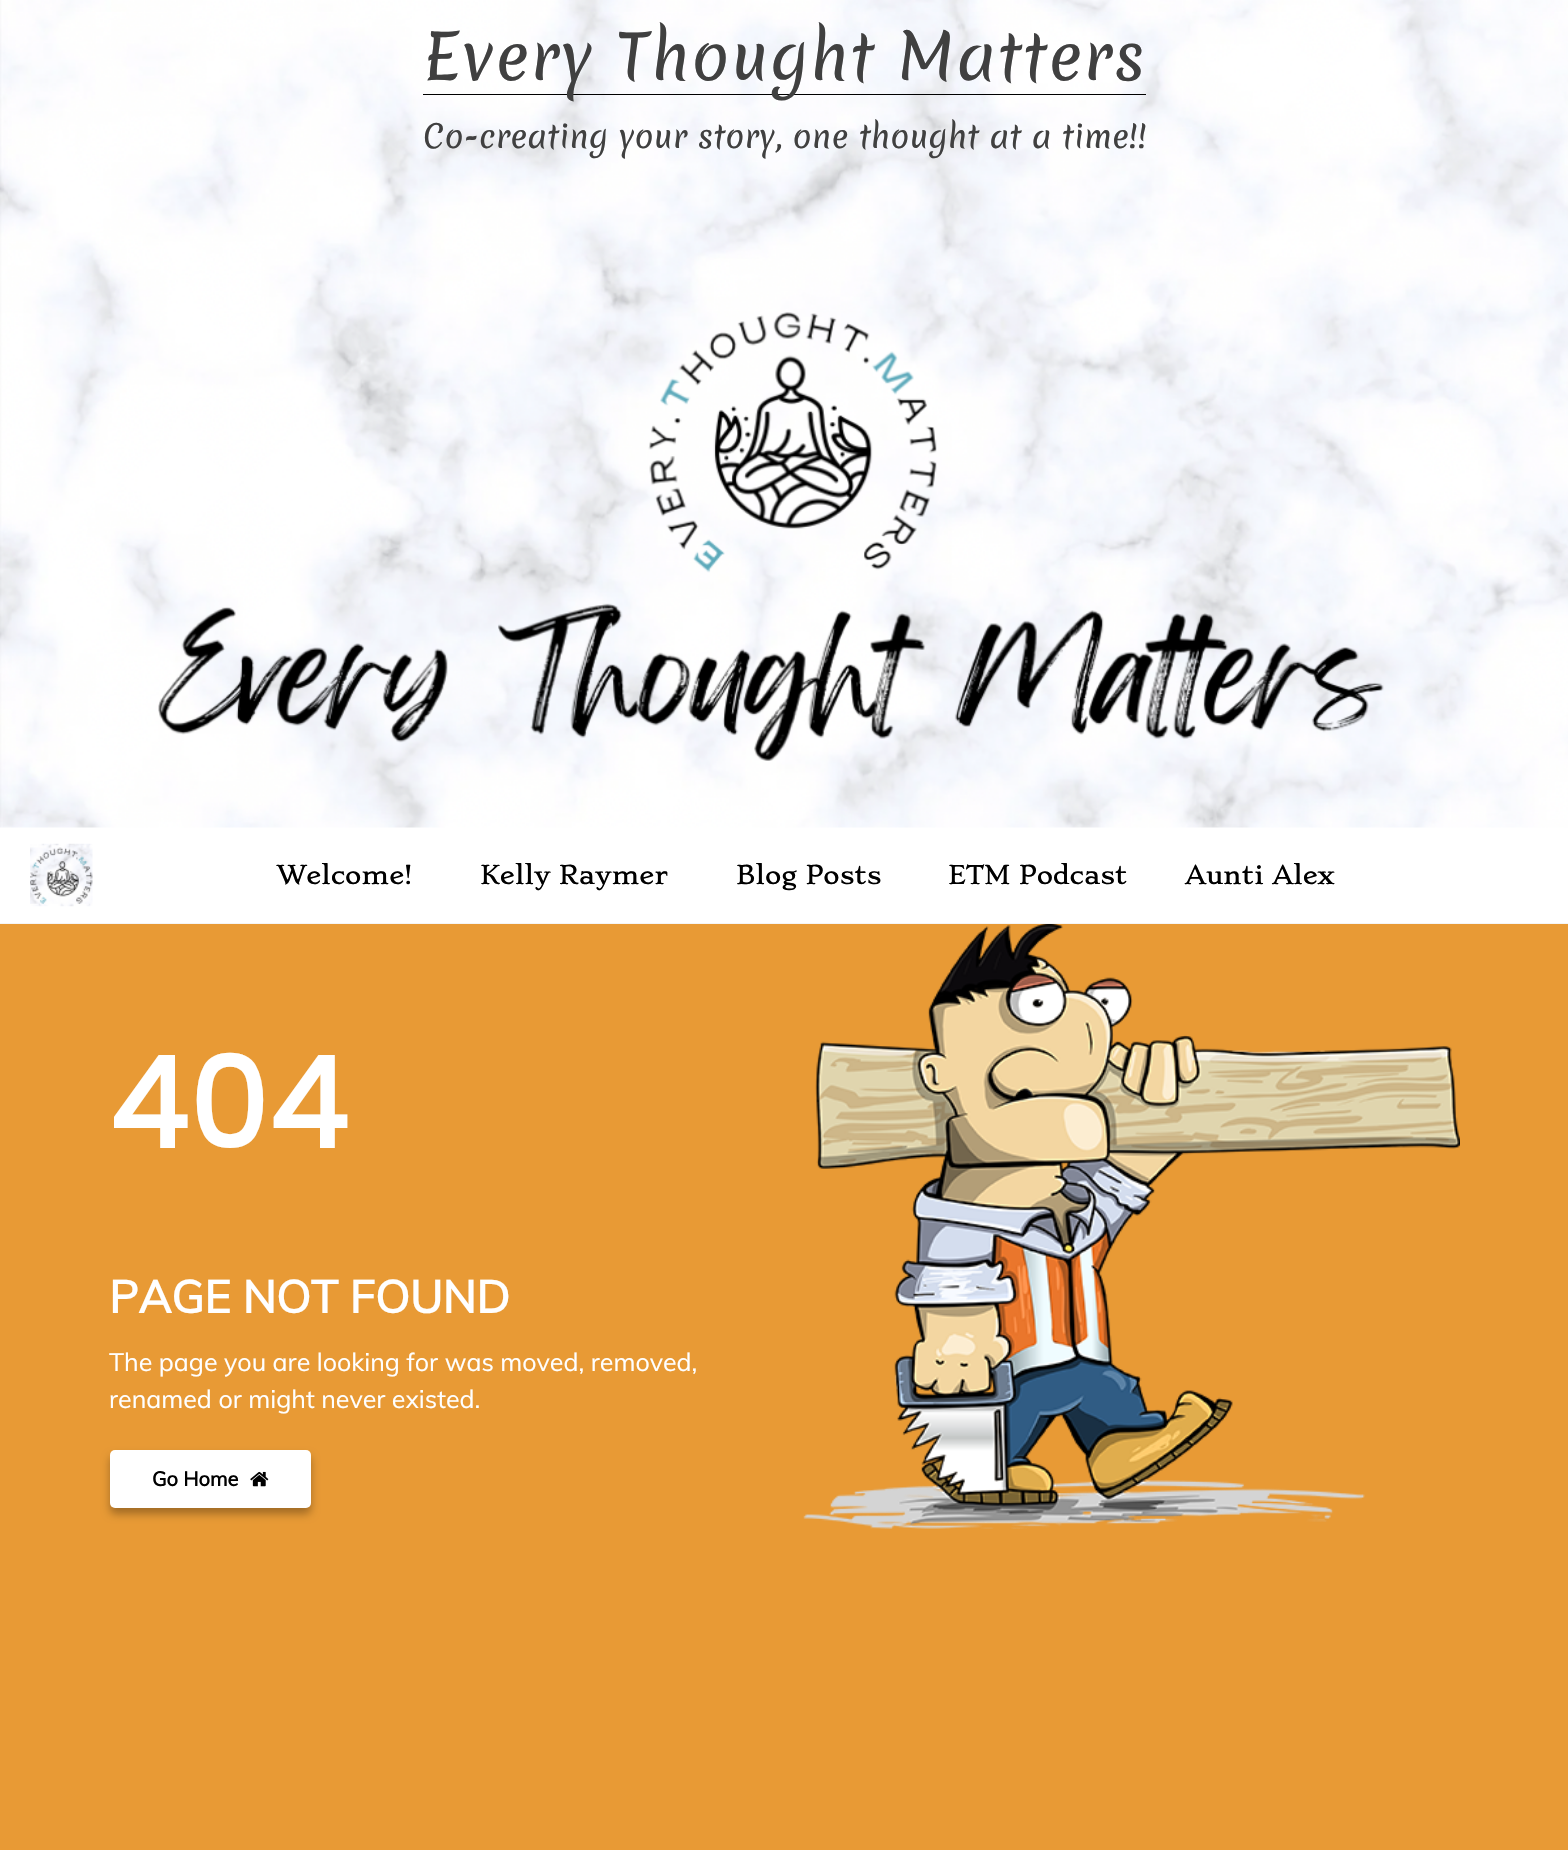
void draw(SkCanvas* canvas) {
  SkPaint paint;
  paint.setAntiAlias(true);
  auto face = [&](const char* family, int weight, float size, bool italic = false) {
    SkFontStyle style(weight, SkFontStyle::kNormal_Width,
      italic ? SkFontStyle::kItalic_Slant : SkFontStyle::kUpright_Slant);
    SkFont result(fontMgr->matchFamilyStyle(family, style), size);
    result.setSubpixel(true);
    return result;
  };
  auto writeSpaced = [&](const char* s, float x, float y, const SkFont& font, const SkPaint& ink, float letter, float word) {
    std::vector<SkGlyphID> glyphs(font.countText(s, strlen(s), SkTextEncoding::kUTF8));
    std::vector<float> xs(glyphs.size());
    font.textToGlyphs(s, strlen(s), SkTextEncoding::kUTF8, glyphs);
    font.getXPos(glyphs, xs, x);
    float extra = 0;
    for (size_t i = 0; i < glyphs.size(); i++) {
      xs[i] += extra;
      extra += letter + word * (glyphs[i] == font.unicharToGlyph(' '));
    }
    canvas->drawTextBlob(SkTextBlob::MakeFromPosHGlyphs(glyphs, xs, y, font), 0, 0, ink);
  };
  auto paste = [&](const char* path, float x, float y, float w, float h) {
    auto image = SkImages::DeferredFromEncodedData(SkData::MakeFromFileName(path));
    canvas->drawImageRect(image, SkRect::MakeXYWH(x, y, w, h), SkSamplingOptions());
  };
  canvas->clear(0xffffffff);
  paste("img/1.png", 0, 0, 1568, 828);
  paint.setColor(0xff000000);
  canvas->drawRect(SkRect::MakeXYWH(423, 94, 723, 1), paint);
  paint.setColor(0xfff5f5f5);
  canvas->drawRect(SkRect::MakeXYWH(0, 923, 1568, 1), paint);
  paste("img/2.png", 30, 843, 63, 64);
  paint.setColor(0xffe89a35);
  canvas->drawRect(SkRect::MakeXYWH(0, 924, 1568, 926), paint);
  paint.setColor(0x4d000000);
  paint.setMaskFilter(SkMaskFilter::MakeBlur(kNormal_SkBlurStyle, 4.5f));
  canvas->drawRoundRect(SkRect::MakeXYWH(110, 1456, 201, 58), 5, 5, paint);
  paint.setMaskFilter(nullptr);
  paint.setColor(0xffffffff);
  canvas->drawRoundRect(SkRect::MakeXYWH(110, 1450, 201, 58), 5, 5, paint);
  paste("img/3.png", 250, 1471, 19, 16);
  paste("img/4.png", 803, 924, 657, 605);
  auto f0 = face("Merienda", 400, 62.5f);
  paint.setColor(0xff404040);
  writeSpaced("Every Thought Matters", 423, 80, f0, paint, 1.25f, 0);
  auto f1 = face("Merienda", 400, 31.25f);
  canvas->drawString("Co-creating your story, one thought at a time!!", 423, 148, f1, paint);
  auto f2 = face("Stoke", 400, 25);
  paint.setColor(0xff000000);
  {
    const struct { const char* s; float x, y; } items[] = {
      {"Welcome!", 277, 884},
      {"Kelly Raymer", 480, 884},
      {"Blog Posts", 736, 884},
      {"ETM Podcast", 948, 884},
      {"Aunti Alex", 1185, 884},
    };
    for (auto [s, x, y] : items) {
      canvas->drawString(s, x, y, f2, paint);
    }
  }
  auto f3 = face("Poppins", 700, 125);
  paint.setColor(0xffffffff);
  writeSpaced("404", 109, 1148, f3, paint, 1.25f, 0);
  auto f4 = face("Muli", 700, 45);
  canvas->drawString("PAGE NOT FOUND", 109, 1313, f4, paint);
  auto f5 = face("Muli", 400, 25);
  canvas->drawString("The page you are looking for was moved, removed,", 109, 1371, f5, paint);
  canvas->drawString("renamed or might never existed.", 109, 1408, f5, paint);
  auto f6 = face("Muli", 700, 20);
  paint.setColor(0xff000000);
  canvas->drawString("Go Home", 152, 1486, f6, paint);
}
